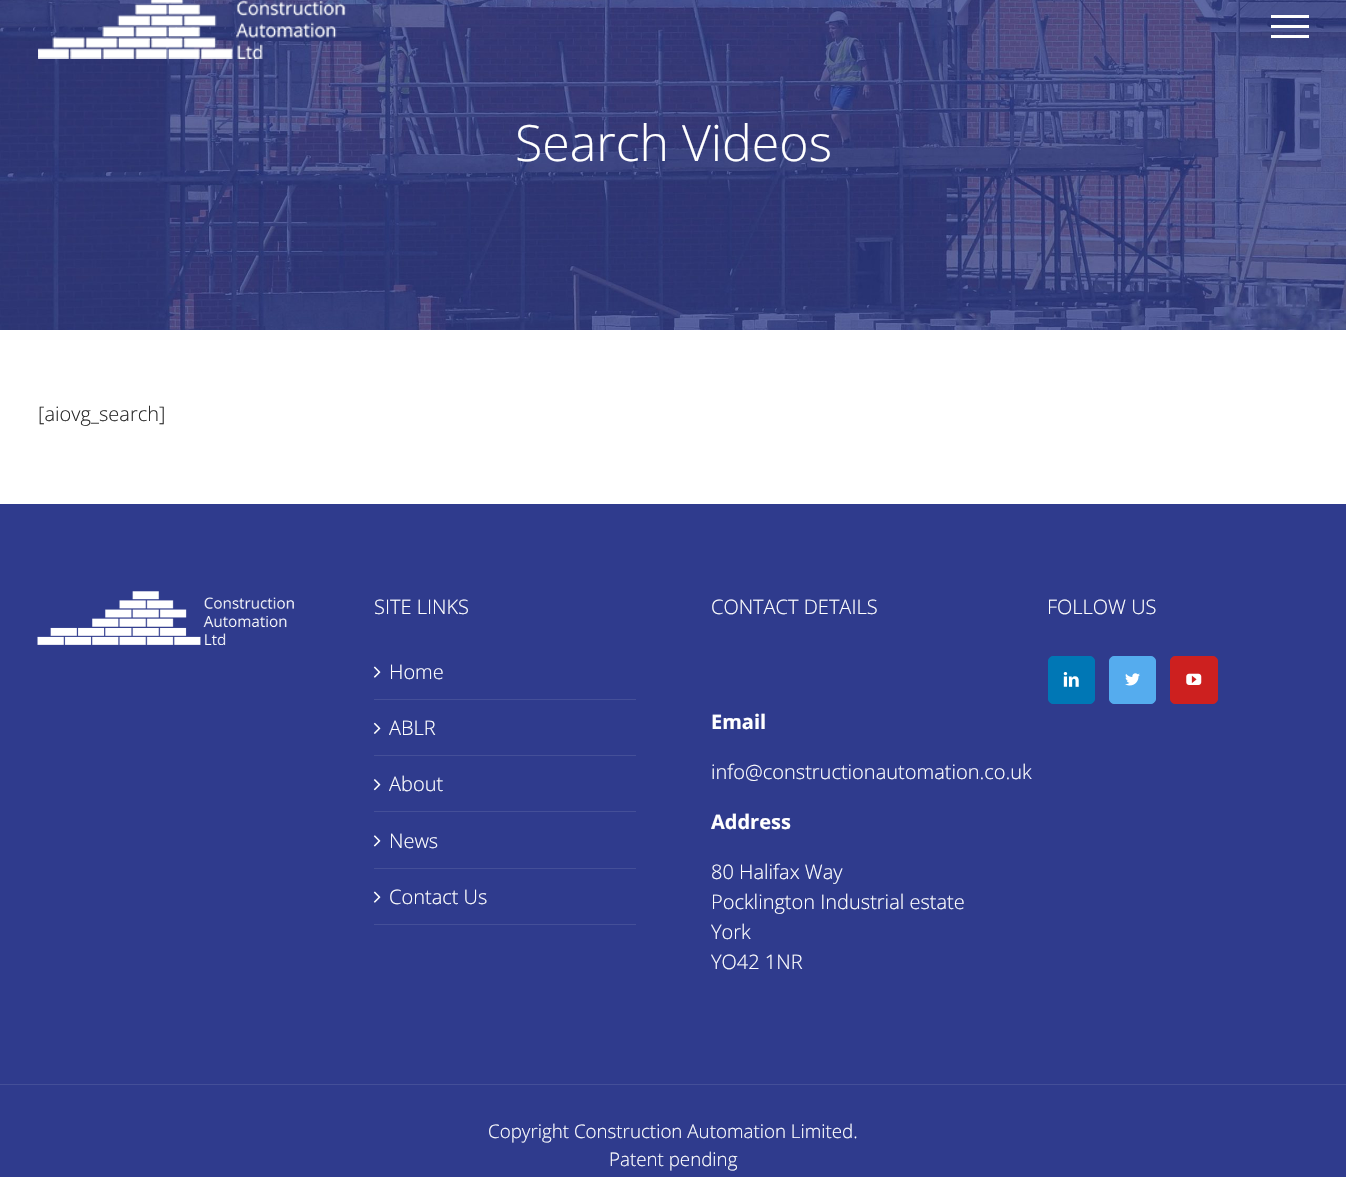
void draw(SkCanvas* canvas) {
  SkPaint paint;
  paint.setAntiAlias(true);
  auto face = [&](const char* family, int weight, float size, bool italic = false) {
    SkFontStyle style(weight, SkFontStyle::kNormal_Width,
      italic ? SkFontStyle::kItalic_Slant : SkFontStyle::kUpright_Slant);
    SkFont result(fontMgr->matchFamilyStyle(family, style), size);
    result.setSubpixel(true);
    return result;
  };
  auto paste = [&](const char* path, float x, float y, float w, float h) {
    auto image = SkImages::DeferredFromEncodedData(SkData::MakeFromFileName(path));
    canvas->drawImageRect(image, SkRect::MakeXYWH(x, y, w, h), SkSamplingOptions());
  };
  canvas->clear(0xffffffff);
  paste("img/2.png", 0, 0, 1346, 330);
  paste("img/1.png", 38, 0, 308, 59);
  {
    const struct { float x, y, w, h; SkColor color; } items[] = {
      {1271, 15, 38, 3, 0xffffffff},
      {1271, 25, 38, 3, 0xffffffff},
      {1271, 35, 38, 3, 0xffffffff},
      {0, 504, 1346, 580, 0xff2f3b8d},
    };
    for (auto [x, y, w, h, color] : items) {
      paint.setColor(color);
      canvas->drawRect(SkRect::MakeXYWH(x, y, w, h), paint);
    }
  }
  paste("img/3.png", 37, 591, 257, 54);
  paint.setColor(0xff444f98);
  canvas->drawRect(SkRect::MakeXYWH(374, 699, 262, 1), paint);
  paste("img/4.png", 373, 666, 8, 12);
  canvas->drawRect(SkRect::MakeXYWH(374, 755, 262, 1), paint);
  paste("img/5.png", 373, 722, 8, 12);
  canvas->drawRect(SkRect::MakeXYWH(374, 811, 262, 1), paint);
  paste("img/6.png", 373, 779, 8, 12);
  canvas->drawRect(SkRect::MakeXYWH(374, 868, 262, 1), paint);
  paste("img/7.png", 373, 835, 8, 12);
  canvas->drawRect(SkRect::MakeXYWH(374, 924, 262, 1), paint);
  paste("img/4.png", 373, 891, 8, 12);
  paint.setColor(0xff0077b5);
  canvas->drawRoundRect(SkRect::MakeXYWH(1048.5f, 656.5f, 46, 47), 4.5f, 4.5f, paint);
  paint.setStroke(true);
  paint.setStrokeWidth(1);
  canvas->drawRoundRect(SkRect::MakeXYWH(1048.5f, 656.5f, 46, 47), 4.5f, 4.5f, paint);
  paste("img/8.png", 1063, 672, 16, 15);
  paint.setStroke(false);
  paint.setColor(0xff55acee);
  canvas->drawRoundRect(SkRect::MakeXYWH(1109.5f, 656.5f, 46, 47), 4.5f, 4.5f, paint);
  paint.setStroke(true);
  canvas->drawRoundRect(SkRect::MakeXYWH(1109.5f, 656.5f, 46, 47), 4.5f, 4.5f, paint);
  paste("img/9.png", 1125, 673, 15, 13);
  paint.setStroke(false);
  paint.setColor(0xffcd201f);
  canvas->drawRoundRect(SkRect::MakeXYWH(1170.5f, 656.5f, 47, 47), 4.5f, 4.5f, paint);
  paint.setStroke(true);
  canvas->drawRoundRect(SkRect::MakeXYWH(1170.5f, 656.5f, 47, 47), 4.5f, 4.5f, paint);
  paste("img/10.png", 1186, 673, 16, 12);
  paint.setStroke(false);
  paint.setColor(0xff2f3b8d);
  canvas->drawRect(SkRect::MakeXYWH(0, 1085, 1346, 92), paint);
  paint.setColor(0xff444f98);
  canvas->drawRect(SkRect::MakeXYWH(0, 1084, 1346, 1), paint);
  auto f0 = face("Open Sans", 300, 50);
  paint.setColor(0xffffffff);
  canvas->drawString("Search Videos", 515, 161, f0, paint);
  auto f1 = face("Open Sans", 300, 20);
  paint.setColor(0xff2b2b2b);
  canvas->drawString("[aiovg_search]", 38, 421, f1, paint);
  paint.setColor(0xffffffff);
  {
    const struct { const char* s; float x, y; } items[] = {
      {"SITE LINKS", 374, 614},
      {"Home", 389, 679},
      {"ABLR", 389, 735},
      {"About", 389, 791},
      {"News", 389, 848},
      {"Contact Us", 389, 904},
      {"CONTACT DETAILS", 711, 614},
    };
    for (auto [s, x, y] : items) {
      canvas->drawString(s, x, y, f1, paint);
    }
  }
  auto f2 = face("Open Sans", 700, 20);
  canvas->drawString("Email", 711, 729, f2, paint);
  canvas->drawString("info@constructionautomation.co.uk", 711, 779, f1, paint);
  canvas->drawString("Address", 711, 829, f2, paint);
  {
    const struct { const char* s; float x, y; } items[] = {
      {"80 Halifax Way", 711, 879},
      {"Pocklington Industrial estate", 711, 909},
      {"York", 711, 939},
      {"YO42 1NR", 711, 969},
      {"FOLLOW US", 1047, 614},
    };
    for (auto [s, x, y] : items) {
      canvas->drawString(s, x, y, f1, paint);
    }
  }
  auto f3 = face("Open Sans", 300, 18.75f);
  canvas->drawString("Copyright Construction Automation Limited.", 488, 1138, f3, paint);
  canvas->drawString("Patent pending", 609, 1166, f3, paint);
}
